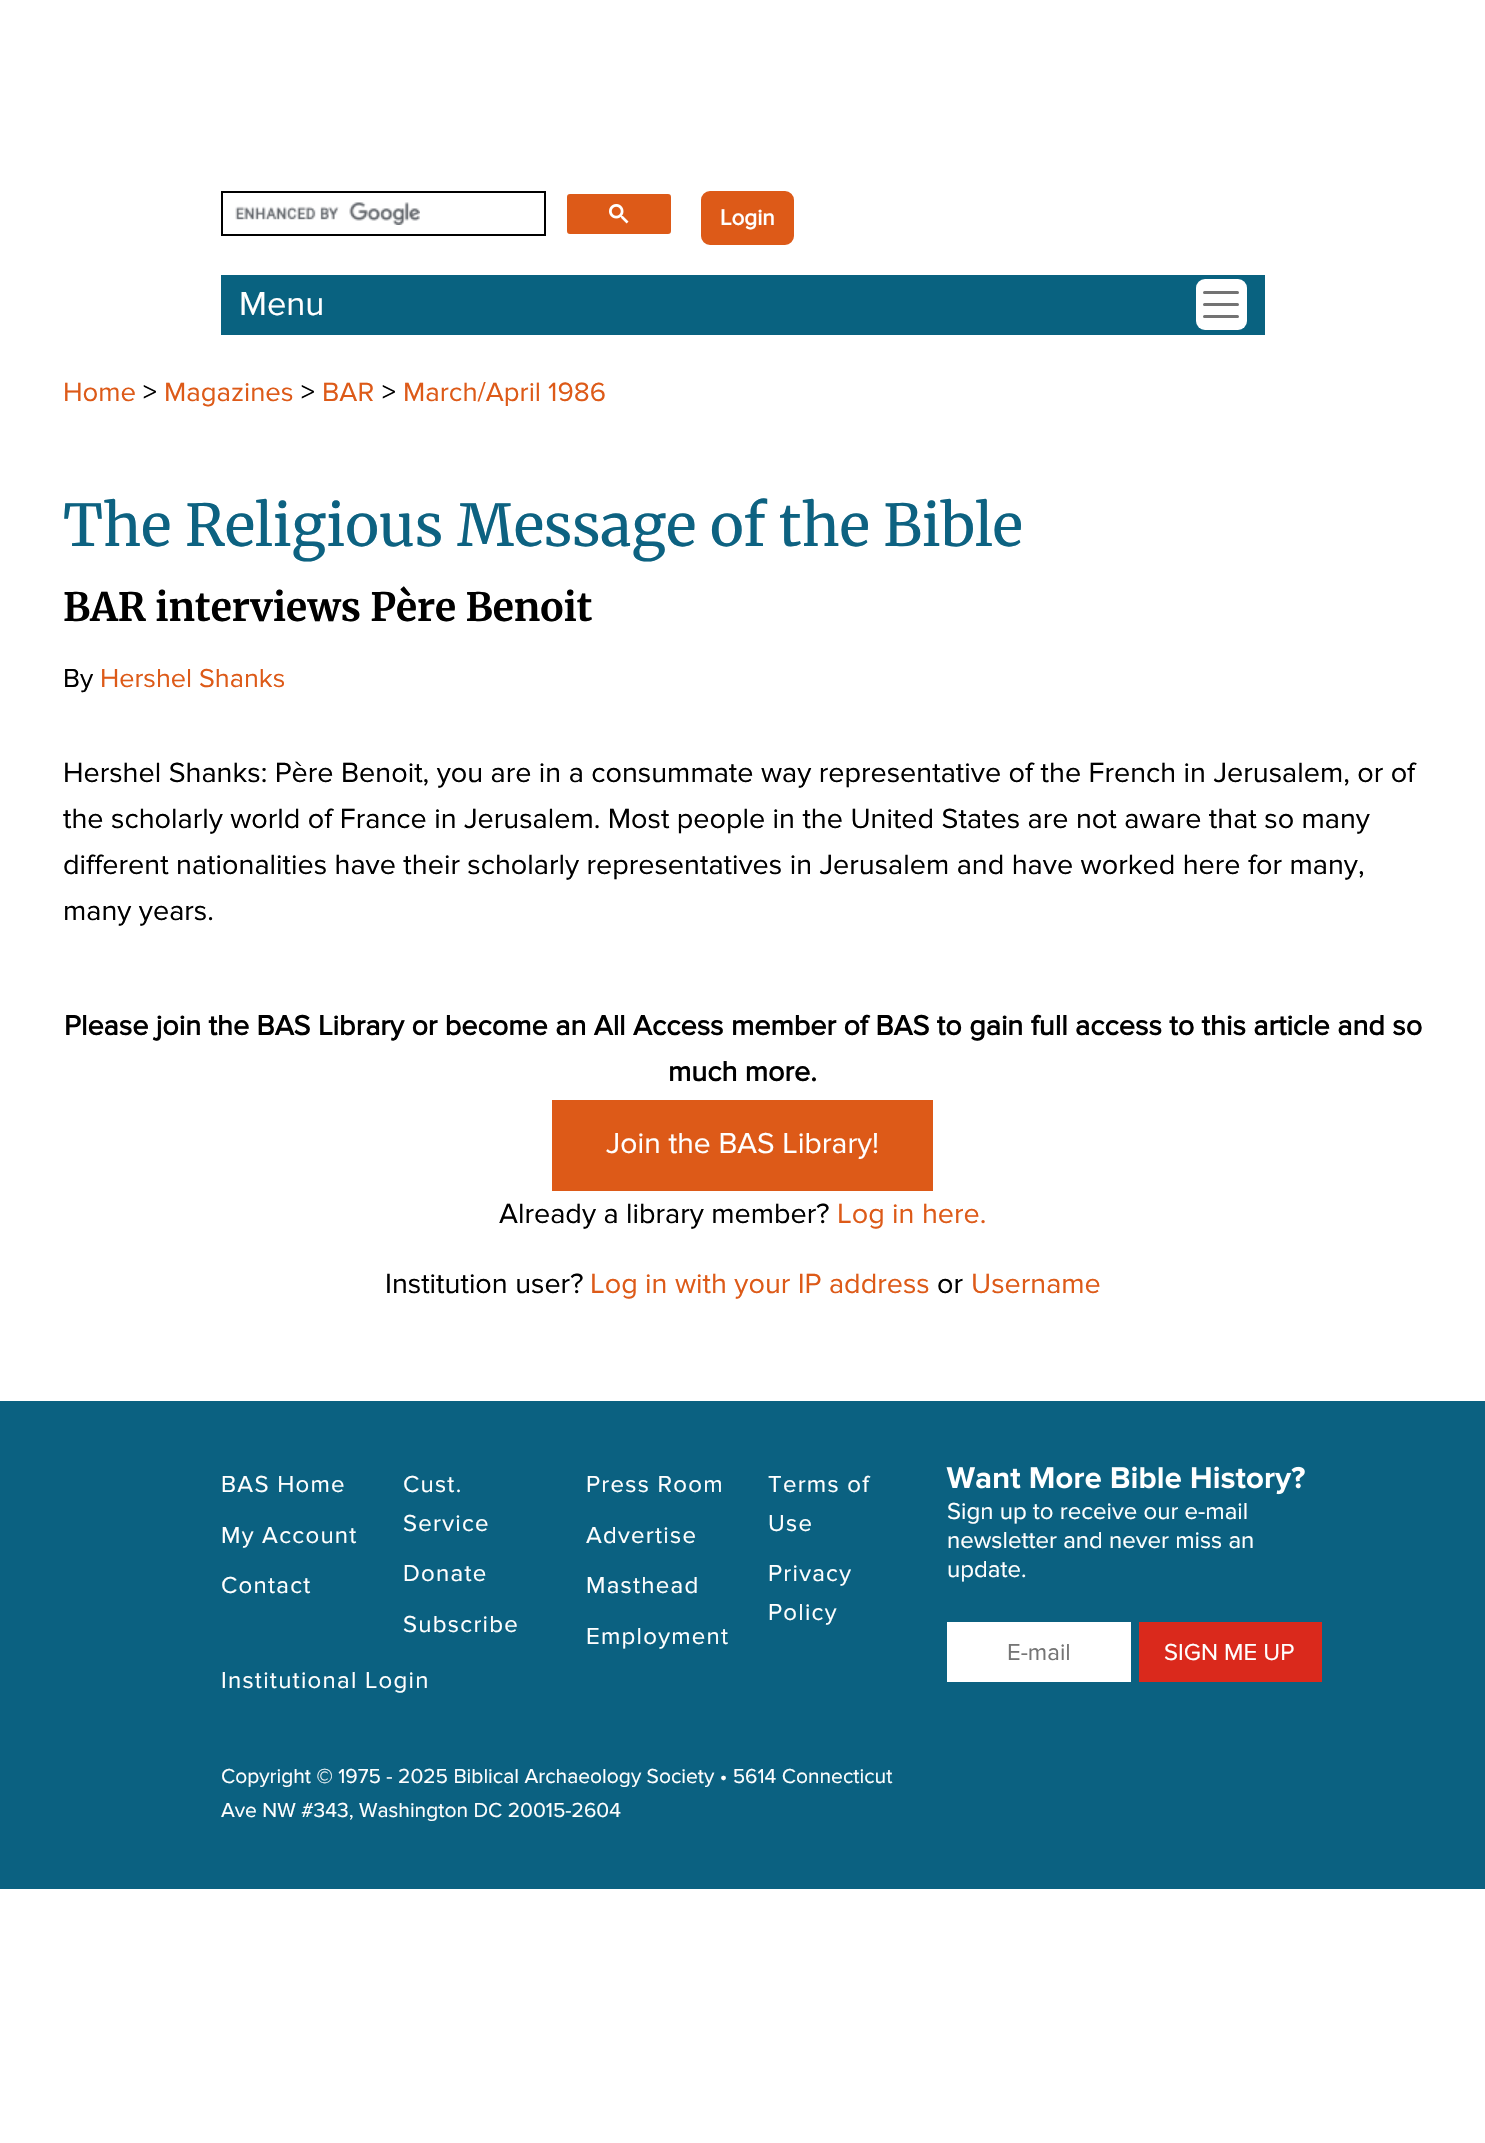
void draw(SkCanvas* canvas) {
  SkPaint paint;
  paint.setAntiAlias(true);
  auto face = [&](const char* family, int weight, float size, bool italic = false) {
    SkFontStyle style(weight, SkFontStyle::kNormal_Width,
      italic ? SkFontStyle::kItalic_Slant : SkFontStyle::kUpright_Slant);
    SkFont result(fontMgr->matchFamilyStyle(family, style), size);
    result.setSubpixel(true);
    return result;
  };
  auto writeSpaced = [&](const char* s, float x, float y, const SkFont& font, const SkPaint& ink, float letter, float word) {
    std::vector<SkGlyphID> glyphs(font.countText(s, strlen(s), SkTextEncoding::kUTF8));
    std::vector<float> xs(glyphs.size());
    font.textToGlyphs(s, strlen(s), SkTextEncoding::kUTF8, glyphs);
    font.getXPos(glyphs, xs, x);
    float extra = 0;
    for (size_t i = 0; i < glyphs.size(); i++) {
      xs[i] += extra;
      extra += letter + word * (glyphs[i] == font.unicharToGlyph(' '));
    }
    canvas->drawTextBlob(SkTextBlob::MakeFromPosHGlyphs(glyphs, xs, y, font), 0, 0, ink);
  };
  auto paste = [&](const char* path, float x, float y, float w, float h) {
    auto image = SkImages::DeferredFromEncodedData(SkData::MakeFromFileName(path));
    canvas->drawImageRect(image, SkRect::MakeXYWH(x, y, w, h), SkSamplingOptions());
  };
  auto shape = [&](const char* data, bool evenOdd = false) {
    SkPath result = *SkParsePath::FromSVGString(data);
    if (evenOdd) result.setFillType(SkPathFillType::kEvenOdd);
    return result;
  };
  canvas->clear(0xffffffff);
  paint.setStroke(true);
  paint.setStrokeWidth(2);
  paint.setColor(0xff000000);
  canvas->drawRect(SkRect::MakeXYWH(222, 192, 323, 43), paint);
  paste("img/1.png", 235, 202, 185, 23);
  paint.setStroke(false);
  paint.setColor(0xffdd5a18);
  canvas->drawRoundRect(SkRect::MakeXYWH(568, 195, 102, 38), 2, 2, paint);
  paint.setStroke(true);
  canvas->drawRoundRect(SkRect::MakeXYWH(568, 195, 102, 38), 2, 2, paint);
  paste("img/2.png", 609, 204, 20, 20);
  paint.setStroke(false);
  canvas->drawRoundRect(SkRect::MakeXYWH(702, 192, 91, 52), 8, 8, paint);
  paint.setStroke(true);
  canvas->drawRoundRect(SkRect::MakeXYWH(702, 192, 91, 52), 8, 8, paint);
  paint.setStroke(false);
  paint.setColor(0xff096280);
  canvas->drawRect(SkRect::MakeXYWH(221, 275, 1044, 60), paint);
  paint.setColor(0xffffffff);
  canvas->drawRoundRect(SkRect::MakeXYWH(1196, 279, 51, 51), 9, 9, paint);
  paint.setStroke(true);
  paint.setStrokeWidth(3);
  paint.setStrokeCap(SkPaint::kRound_Cap);
  paint.setColor(0xff737373);
  canvas->drawPath(shape("M1204.5 292.5H1237.5M1204.5 304.5H1237.5M1204.5 316.5H1237.5"), paint);
  paint.setStroke(false);
  paint.setColor(0xffdd5a18);
  canvas->drawRect(SkRect::MakeXYWH(552, 1100, 381, 91), paint);
  paint.setColor(0xff0b6181);
  canvas->drawRect(SkRect::MakeXYWH(0, 1401, 1485, 488), paint);
  paste("img/3.png", 946, 1466, 359, 29);
  paint.setColor(0xffffffff);
  canvas->drawRect(SkRect::MakeXYWH(947, 1622, 184, 60), paint);
  paint.setColor(0xffda291c);
  canvas->drawRect(SkRect::MakeXYWH(1139, 1622, 183, 60), paint);
  auto f0 = face("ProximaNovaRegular", 700, 22.5f);
  paint.setColor(0xffffffff);
  canvas->drawString("Login", 720, 225, f0, paint);
  auto f1 = face("ProximaNovaRegular", 400, 34.5f);
  canvas->drawString("Menu", 239, 315, f1, paint);
  auto f2 = face("ProximaNovaRegular", 400, 27.5f);
  paint.setColor(0xffdd5a18);
  canvas->drawString("Home", 63, 401, f2, paint);
  paint.setColor(0xff000000);
  canvas->drawString(">", 143, 401, f2, paint);
  paint.setColor(0xffdd5a18);
  canvas->drawString("Magazines", 164, 401, f2, paint);
  paint.setColor(0xff000000);
  canvas->drawString(">", 301, 401, f2, paint);
  paint.setColor(0xffdd5a18);
  canvas->drawString("BAR", 322, 401, f2, paint);
  paint.setColor(0xff000000);
  canvas->drawString(">", 382, 401, f2, paint);
  paint.setColor(0xffdd5a18);
  canvas->drawString("March/April 1986", 403, 401, f2, paint);
  auto f3 = face("Merriweather", 400, 57.6f);
  paint.setColor(0xff0d6281);
  canvas->drawString("The Religious Message of the Bible", 63, 546, f3, paint);
  auto f4 = face("Merriweather", 700, 39);
  paint.setColor(0xff000000);
  canvas->drawString("BAR interviews Père Benoit", 63, 621, f4, paint);
  auto f5 = face("ProximaNovaRegular", 400, 27);
  canvas->drawString("By", 63, 687, f5, paint);
  paint.setColor(0xffdd5a18);
  canvas->drawString("Hershel Shanks", 100, 687, f5, paint);
  auto f6 = face("ProximaNovaRegular", 400, 28.8f);
  paint.setColor(0xff000000);
  {
    const struct { const char* s; float x, y; } items[] = {
      {"Hershel Shanks: Père Benoit, you are in a consummate way representative of the French in Jerusalem, or of", 63, 782},
      {"the scholarly world of France in Jerusalem. Most people in the United States are not aware that so many", 63, 828},
      {"different nationalities have their scholarly representatives in Jerusalem and have worked here for many,", 63, 874},
      {"many years.", 63, 920},
    };
    for (auto [s, x, y] : items) {
      canvas->drawString(s, x, y, f6, paint);
    }
  }
  auto f7 = face("ProximaNovaRegular", 700, 28.8f);
  canvas->drawString("Please join the BAS Library or become an All Access member of BAS to gain full access to this article and so", 64, 1035, f7, paint);
  canvas->drawString("much more.", 668, 1081, f7, paint);
  auto f8 = face("ProximaNovaRegular", 400, 30);
  paint.setColor(0xffffffff);
  canvas->drawString("Join the BAS Library!", 606, 1153, f8, paint);
  paint.setColor(0xff000000);
  canvas->drawString("Already a library member?", 499, 1223, f6, paint);
  paint.setColor(0xffdd5a18);
  canvas->drawString("Log in here.", 837, 1223, f6, paint);
  paint.setColor(0xff000000);
  canvas->drawString("Institution user?", 385, 1293, f6, paint);
  paint.setColor(0xffdd5a18);
  canvas->drawString("Log in with your IP address", 590, 1293, f6, paint);
  paint.setColor(0xff000000);
  canvas->drawString("or", 937, 1293, f6, paint);
  paint.setColor(0xffdd5a18);
  canvas->drawString("Username", 971, 1293, f6, paint);
  auto f9 = face("ProximaNovaRegular", 400, 24);
  paint.setColor(0xffffffff);
  {
    const struct { const char* s; float x, y; } items[] = {
      {"BAS Home", 221, 1492},
      {"Cust.", 403, 1492},
      {"Service", 403, 1531},
      {"Press Room", 586, 1492},
      {"Terms of", 768, 1492},
      {"Use", 768, 1531},
      {"My Account", 221, 1543},
      {"Advertise", 586, 1543},
      {"Contact", 221, 1593},
      {"Donate", 403, 1581},
      {"Masthead", 586, 1593},
      {"Privacy", 768, 1581},
      {"Policy", 768, 1620},
      {"Subscribe", 403, 1632},
      {"Employment", 586, 1644},
      {"Institutional Login", 221, 1688},
    };
    for (auto [s, x, y] : items) {
      writeSpaced(s, x, y, f9, paint, 1.25f, 0);
    }
  }
  auto f10 = face("ProximaNovaRegular", 400, 21);
  canvas->drawString("Copyright © 1975 - 2025 Biblical Archaeology Society • 5614 Connecticut", 221, 1783, f10, paint);
  canvas->drawString("Ave NW #343, Washington DC 20015-2604", 221, 1817, f10, paint);
  {
    const struct { const char* s; float x, y; } items[] = {
      {"Sign up to receive our e-mail", 947, 1519},
      {"newsletter and never miss an", 947, 1548},
      {"update.", 947, 1577},
    };
    for (auto [s, x, y] : items) {
      canvas->drawString(s, x, y, f9, paint);
    }
  }
  paint.setColor(0xff757575);
  canvas->drawString("E-mail", 1007, 1660, f9, paint);
  paint.setColor(0xffffffff);
  canvas->drawString("SIGN ME UP", 1164, 1660, f9, paint);
}
